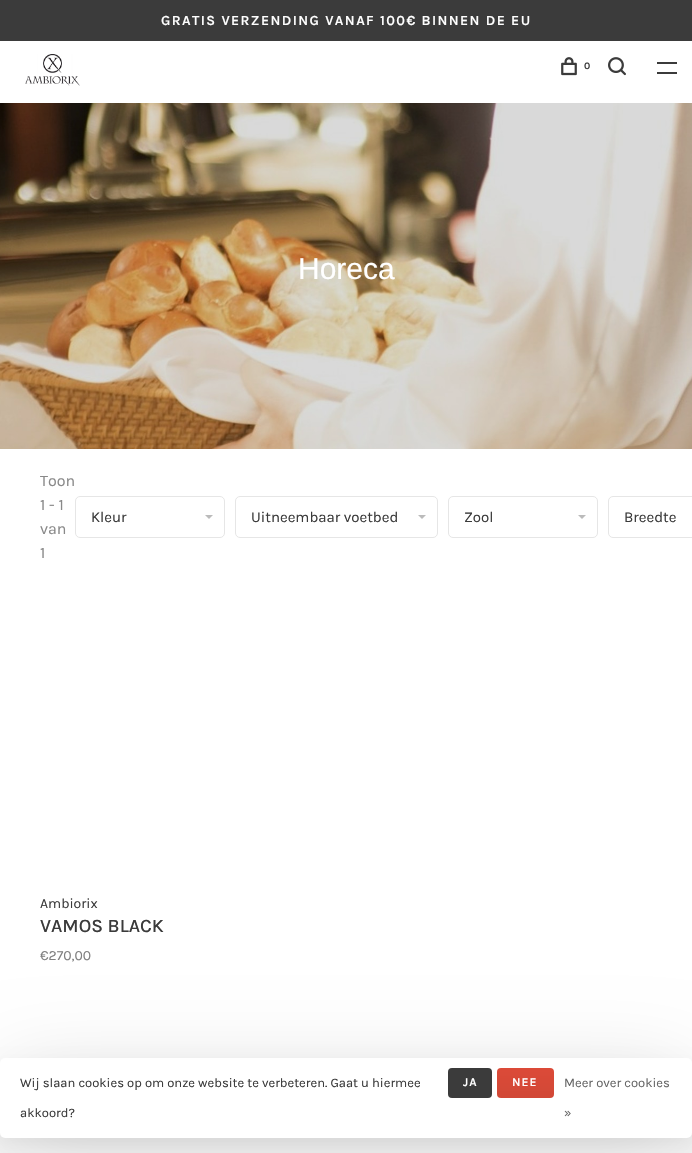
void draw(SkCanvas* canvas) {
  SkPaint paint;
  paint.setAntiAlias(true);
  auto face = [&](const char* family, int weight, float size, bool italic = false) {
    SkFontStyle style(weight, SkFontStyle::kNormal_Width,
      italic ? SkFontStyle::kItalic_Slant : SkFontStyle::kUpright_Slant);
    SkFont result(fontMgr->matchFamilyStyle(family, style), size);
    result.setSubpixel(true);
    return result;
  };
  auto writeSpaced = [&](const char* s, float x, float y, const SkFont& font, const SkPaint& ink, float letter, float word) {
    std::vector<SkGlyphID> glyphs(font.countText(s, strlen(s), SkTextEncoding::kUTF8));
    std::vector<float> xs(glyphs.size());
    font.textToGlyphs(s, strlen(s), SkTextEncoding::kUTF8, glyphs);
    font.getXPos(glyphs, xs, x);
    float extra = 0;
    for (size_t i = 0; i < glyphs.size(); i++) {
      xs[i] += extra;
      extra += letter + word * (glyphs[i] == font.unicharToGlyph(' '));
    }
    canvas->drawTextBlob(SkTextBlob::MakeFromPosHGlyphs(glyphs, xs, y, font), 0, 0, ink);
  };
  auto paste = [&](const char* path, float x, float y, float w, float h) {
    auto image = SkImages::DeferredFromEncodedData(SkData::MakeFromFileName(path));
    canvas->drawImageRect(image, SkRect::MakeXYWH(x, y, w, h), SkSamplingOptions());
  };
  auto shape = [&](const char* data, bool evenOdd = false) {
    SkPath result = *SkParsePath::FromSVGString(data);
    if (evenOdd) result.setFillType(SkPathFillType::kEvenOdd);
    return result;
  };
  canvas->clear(0xffffffff);
  paint.setColor(0xff3b3b3b);
  canvas->drawRect(SkRect::MakeXYWH(0, 0, 692, 41), paint);
  paste("img/1.png", 25, 54, 55, 32);
  paste("img/2.png", 561, 57, 16, 19);
  paste("img/3.png", 608, 57, 18, 19);
  canvas->drawRect(SkRect::MakeXYWH(657, 62, 20, 2), paint);
  canvas->drawRect(SkRect::MakeXYWH(657, 72, 20, 2), paint);
  paste("img/4.png", 0, 103, 692, 346);
  paint.setStroke(true);
  paint.setStrokeWidth(1);
  paint.setColor(0xffe6e6e6);
  canvas->drawRoundRect(SkRect::MakeXYWH(75.5f, 496.5f, 149, 41), 4.5f, 4.5f, paint);
  paint.setStroke(false);
  paint.setColor(0xffbbbbbb);
  canvas->drawPath(shape("M205 515H213L209 519Z"), paint);
  paint.setStroke(true);
  paint.setColor(0xffe6e6e6);
  canvas->drawRoundRect(SkRect::MakeXYWH(235.5f, 496.5f, 202, 41), 4.5f, 4.5f, paint);
  paint.setStroke(false);
  paint.setColor(0xffbbbbbb);
  canvas->drawPath(shape("M418 515H426L422 519Z"), paint);
  paint.setStroke(true);
  paint.setColor(0xffe6e6e6);
  canvas->drawRoundRect(SkRect::MakeXYWH(448.5f, 496.5f, 149, 41), 4.5f, 4.5f, paint);
  paint.setStroke(false);
  paint.setColor(0xffbbbbbb);
  canvas->drawPath(shape("M578 515H586L582 519Z"), paint);
  paint.setStroke(true);
  paint.setColor(0xffe6e6e6);
  canvas->drawRoundRect(SkRect::MakeXYWH(608.5f, 496.5f, 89, 41), 4.5f, 4.5f, paint);
  paint.setStroke(false);
  paint.setColor(0xfff7f7f7);
  canvas->drawRect(SkRect::MakeXYWH(0, 1133, 692, 20), paint);
  paint.setColor(0x0d000000);
  paint.setMaskFilter(SkMaskFilter::MakeBlur(kNormal_SkBlurStyle, 7.5f));
  canvas->drawRoundRect(SkRect::MakeXYWH(0, 1064, 692, 80), 5, 5, paint);
  paint.setMaskFilter(nullptr);
  paint.setColor(0x26000000);
  paint.setMaskFilter(SkMaskFilter::MakeBlur(kNormal_SkBlurStyle, 43));
  canvas->drawRect(SkRect::MakeXYWH(6, 1078, 680, 68), paint);
  paint.setMaskFilter(nullptr);
  paint.setColor(0xffffffff);
  canvas->drawRoundRect(SkRect::MakeXYWH(0, 1058, 692, 80), 5, 5, paint);
  paint.setColor(0xff3b3b3b);
  canvas->drawRoundRect(SkRect::MakeXYWH(448, 1068, 44, 30), 4, 4, paint);
  {
    const SkColor colors[] = {0xffdc4a38, 0xffd14836};
    const float stops[] = {0, 1};
    const SkPoint ends[] = {{526, 1068}, {526, 1098}};
    paint.setShader(SkGradientShader::MakeLinear(ends, colors, stops, 2, SkTileMode::kClamp));
    paint.setAlpha(255);
  }
  canvas->drawRoundRect(SkRect::MakeXYWH(497, 1068, 57, 30), 4, 4, paint);
  auto f0 = face("Karla", 600, 14);
  paint.setShader(nullptr);
  paint.setColor(0xffffffff);
  writeSpaced("GRATIS VERZENDING VANAF 100€ BINNEN DE EU", 161, 25, f0, paint, 1.4f, 0);
  auto f1 = face("Karla", 600, 10);
  paint.setColor(0xff3b3b3b);
  writeSpaced("0", 584, 69, f1, paint, 1.4f, 0);
  auto f2 = face("Liberation Sans", 400, 30);
  paint.setColor(0xffffffff);
  canvas->drawString("Horeca", 298, 279, f2, paint);
  auto f3 = face("Karla", 400, 16);
  paint.setColor(0xff898989);
  {
    const struct { const char* s; float x, y; } items[] = {
      {"Toon", 40, 486},
      {"1 - 1", 40, 510},
      {"van", 40, 534},
      {"1", 40, 558},
    };
    for (auto [s, x, y] : items) {
      canvas->drawString(s, x, y, f3, paint);
    }
  }
  auto f4 = face("Karla", 400, 15);
  paint.setColor(0xff3b3b3b);
  {
    const struct { const char* s; float x, y; } items[] = {
      {"Kleur", 91, 522},
      {"Uitneembaar voetbed", 251, 522},
      {"Zool", 464, 522},
      {"Breedte", 624, 522},
    };
    for (auto [s, x, y] : items) {
      canvas->drawString(s, x, y, f4, paint);
    }
  }
  auto f5 = face("Karla", 400, 14);
  canvas->drawString("Ambiorix", 40, 908, f5, paint);
  auto f6 = face("Karla", 500, 19);
  canvas->drawString("VAMOS BLACK", 40, 932, f6, paint);
  paint.setColor(0xff808080);
  canvas->drawString("€270,00", 40, 960, f5, paint);
  auto f7 = face("Karla", 400, 13);
  paint.setColor(0xff3b3b3b);
  canvas->drawString("Wij slaan cookies op om onze website te verbeteren. Gaat u hiermee", 20, 1087, f7, paint);
  auto f8 = face("Karla", 600, 12);
  paint.setColor(0xffffffff);
  writeSpaced("JA", 463, 1086, f8, paint, 1, 0);
  writeSpaced("NEE", 512, 1086, f8, paint, 1, 0);
  paint.setColor(0xff666666);
  canvas->drawString("Meer over cookies", 564, 1087, f7, paint);
  canvas->drawString("»", 564, 1117, f7, paint);
  paint.setColor(0xff3b3b3b);
  canvas->drawString("akkoord?", 20, 1117, f7, paint);
}
